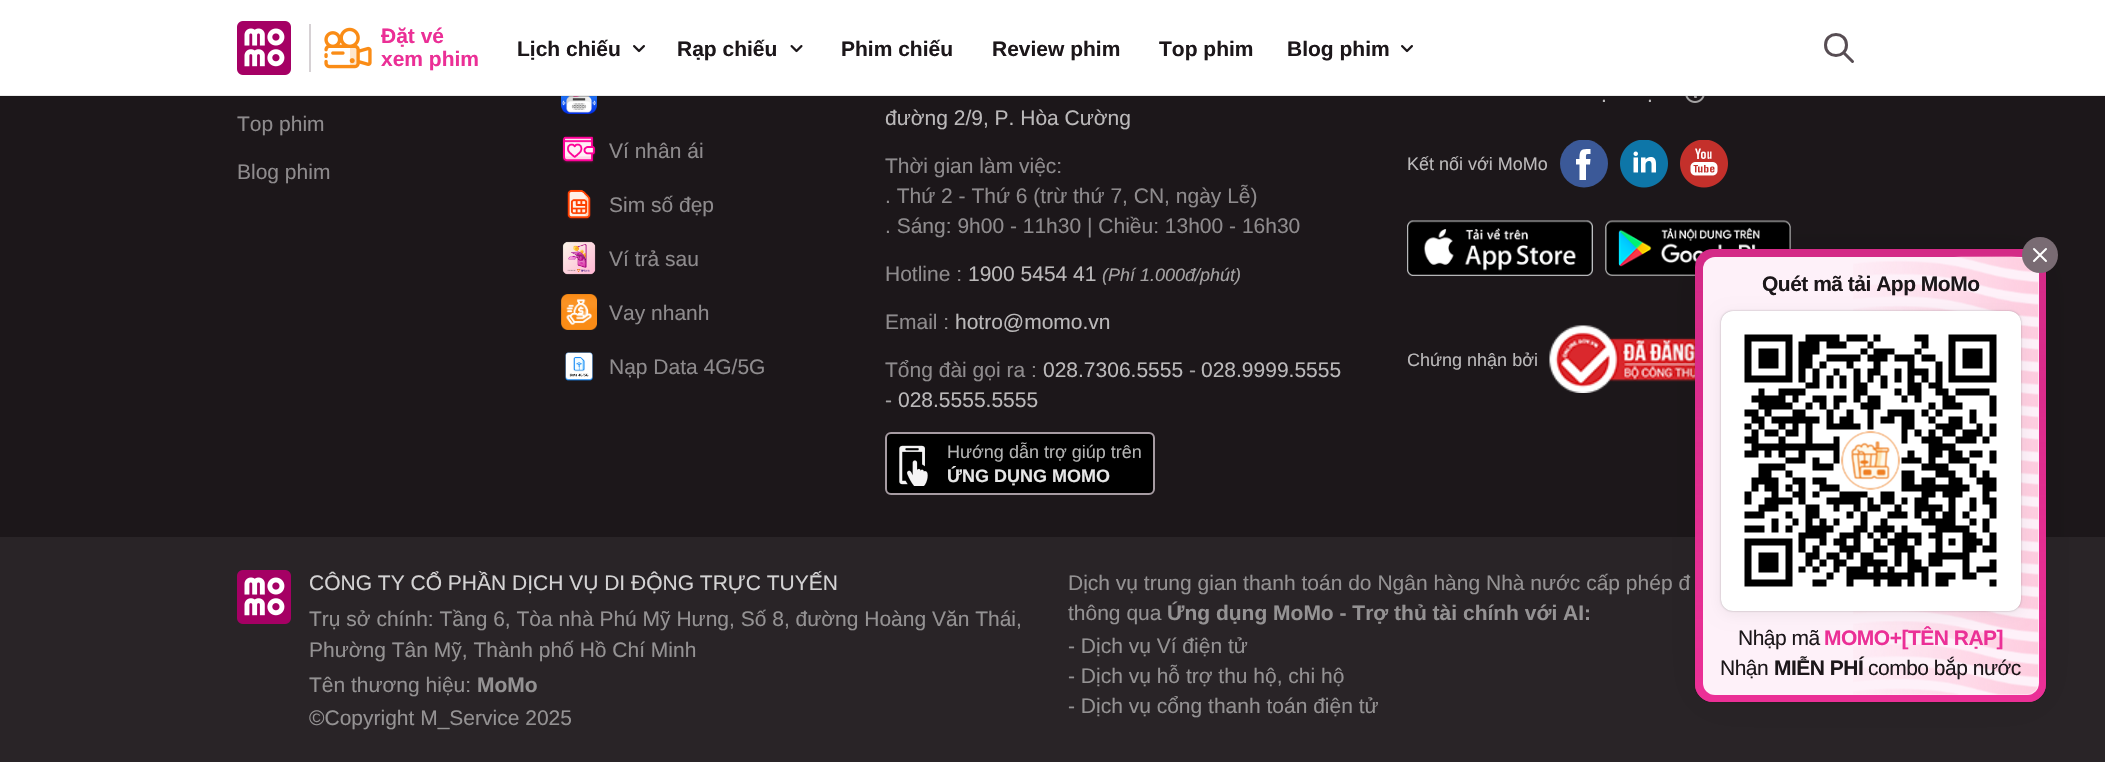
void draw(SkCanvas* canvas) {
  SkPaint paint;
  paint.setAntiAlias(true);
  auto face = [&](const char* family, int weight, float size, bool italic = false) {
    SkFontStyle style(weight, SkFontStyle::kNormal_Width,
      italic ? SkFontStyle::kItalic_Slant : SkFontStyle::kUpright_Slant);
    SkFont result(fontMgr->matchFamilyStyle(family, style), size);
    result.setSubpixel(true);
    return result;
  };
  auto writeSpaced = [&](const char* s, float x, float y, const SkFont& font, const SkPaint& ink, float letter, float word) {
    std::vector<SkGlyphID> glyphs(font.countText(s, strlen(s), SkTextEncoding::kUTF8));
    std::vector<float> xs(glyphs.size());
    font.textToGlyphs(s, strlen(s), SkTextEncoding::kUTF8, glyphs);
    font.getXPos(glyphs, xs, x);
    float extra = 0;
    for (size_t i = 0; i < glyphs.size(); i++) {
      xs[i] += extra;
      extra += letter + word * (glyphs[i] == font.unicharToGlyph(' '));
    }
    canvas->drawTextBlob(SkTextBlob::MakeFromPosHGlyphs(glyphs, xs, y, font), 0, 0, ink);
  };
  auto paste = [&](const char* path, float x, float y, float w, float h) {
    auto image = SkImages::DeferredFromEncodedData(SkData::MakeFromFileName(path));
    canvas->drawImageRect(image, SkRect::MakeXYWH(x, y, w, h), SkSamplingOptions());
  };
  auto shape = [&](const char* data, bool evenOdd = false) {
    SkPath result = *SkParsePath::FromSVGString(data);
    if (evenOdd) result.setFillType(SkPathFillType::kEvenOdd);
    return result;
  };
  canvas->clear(0xff1c171a);
  paint.setColor(0xffffffff);
  canvas->drawRect(SkRect::MakeXYWH(0, 0, 2105, 96), paint);
  paste("img/5.png", 561, 96, 36, 18);
  paste("img/12.png", 1685, 96, 20, 7);
  paint.setColor(0x14000000);
  canvas->drawRect(SkRect::MakeXYWH(0, 95, 2105, 2), paint);
  paste("img/1.png", 237, 21, 54, 54);
  paint.setColor(0xffd6d1d4);
  canvas->drawRect(SkRect::MakeXYWH(309, 24, 2, 48), paint);
  paste("img/2.png", 324, 27, 48, 42);
  paste("img/3.png", 633, 45, 12, 8);
  paste("img/4.png", 790, 45, 13, 8);
  paste("img/3.png", 1401, 45, 12, 8);
  paint.setStroke(true);
  paint.setStrokeWidth(3);
  paint.setStrokeCap(SkPaint::kRound_Cap);
  paint.setStrokeJoin(SkPaint::kRound_Join);
  paint.setColor(0xff574d53);
  canvas->drawPath(shape("M1852.5 61.5L1843.5 52.5M1846.5 45C1846.5 59 1825.5 59 1825.5 45C1825.5 31 1846.5 31 1846.5 45Z"), paint);
  paste("img/6.png", 562, 136, 34, 28);
  paste("img/7.png", 567, 189, 24, 31);
  paste("img/8.png", 562, 241, 34, 34);
  paste("img/9.png", 561, 294, 36, 36);
  paste("img/10.png", 565, 352, 28, 29);
  paint.setStroke(false);
  paint.setColor(0xff000000);
  canvas->drawRoundRect(SkRect::MakeXYWH(886, 433, 268, 61), 5, 5, paint);
  paint.setStroke(true);
  paint.setStrokeWidth(2);
  paint.setStrokeCap(SkPaint::kButt_Cap);
  paint.setStrokeJoin(SkPaint::kMiter_Join);
  paint.setColor(0xffa69ba2);
  canvas->drawRoundRect(SkRect::MakeXYWH(886, 433, 268, 61), 5, 5, paint);
  paste("img/11.png", 899, 445, 29, 41);
  canvas->save();
  canvas->clipRect(SkRect::MakeXYWH(1560, 140, 48, 48));
  paint.setStroke(false);
  paint.setColor(0xff3b5998);
  canvas->drawCircle(1584, 163.5f, 24, paint);
  canvas->restore();
  paint.setColor(0xffffffff);
  canvas->drawPath(shape("M1590 164.5H1586V180H1579.5V164.5H1576V159H1579.5C1579.5 149 1581.5 149 1590.5 149V154C1585.5 154 1586 153.5 1586 159H1590.5Z"), paint);
  paste("img/13.png", 1620, 140, 48, 48);
  paste("img/14.png", 1680, 140, 48, 48);
  paste("img/15.png", 1407, 220, 186, 56);
  paste("img/16.png", 1605, 220, 186, 56);
  paste("img/17.png", 1549, 325, 146, 68);
  paint.setColor(0xff292427);
  canvas->drawRect(SkRect::MakeXYWH(0, 537, 2105, 225), paint);
  paste("img/18.png", 237, 570, 54, 54);
  paint.setColor(0x4d000000);
  paint.setMaskFilter(SkMaskFilter::MakeBlur(kNormal_SkBlurStyle, 1));
  canvas->drawRoundRect(SkRect::MakeXYWH(1695, 249, 351, 453), 18, 18, paint);
  paint.setMaskFilter(nullptr);
  paint.setColor(0x14000000);
  paint.setMaskFilter(SkMaskFilter::MakeBlur(kNormal_SkBlurStyle, 22.5f));
  canvas->drawRoundRect(SkRect::MakeXYWH(1695, 252, 351, 453), 18, 18, paint);
  paint.setMaskFilter(nullptr);
  paint.setColor(0xffd42a87);
  canvas->drawRoundRect(SkRect::MakeXYWH(1695, 249, 351, 453), 18, 18, paint);
  {
    const SkColor colors[] = {0xffeb2f96, 0x00eb2f96};
    const float stops[] = {0, 1};
    const SkPoint ends[] = {{1871, 702}, {1871, 249}};
    paint.setShader(SkGradientShader::MakeLinear(ends, colors, stops, 2, SkTileMode::kClamp));
    paint.setAlpha(255);
  }
  canvas->drawRoundRect(SkRect::MakeXYWH(1695, 249, 351, 453), 18, 18, paint);
  paint.setShader(nullptr);
  paint.setColor(0xfffef1f9);
  canvas->drawRoundRect(SkRect::MakeXYWH(1703, 257, 336, 438), 12, 12, paint);
  paste("img/19.png", 1853, 256, 186, 439);
  paint.setColor(0xff796b73);
  canvas->drawCircle(2040, 255, 18, paint);
  paint.setStroke(true);
  paint.setStrokeCap(SkPaint::kRound_Cap);
  paint.setStrokeJoin(SkPaint::kRound_Join);
  paint.setColor(0xffffffff);
  canvas->drawPath(shape("M2046 249L2034 261M2034 249L2046 261"), paint);
  paint.setStroke(false);
  paint.setColor(0x4d000000);
  paint.setMaskFilter(SkMaskFilter::MakeBlur(kNormal_SkBlurStyle, 1));
  canvas->drawRoundRect(SkRect::MakeXYWH(1721, 311, 300, 300), 12, 12, paint);
  paint.setMaskFilter(nullptr);
  paint.setColor(0x0f000000);
  paint.setMaskFilter(SkMaskFilter::MakeBlur(kNormal_SkBlurStyle, 7.5f));
  canvas->drawRoundRect(SkRect::MakeXYWH(1721, 314, 300, 300), 12, 12, paint);
  paint.setMaskFilter(nullptr);
  paint.setColor(0xffffffff);
  canvas->drawRoundRect(SkRect::MakeXYWH(1721, 311, 300, 300), 12, 12, paint);
  paste("img/20.png", 1744, 334, 253, 253);
  auto f0 = face("Liberation Sans", 700, 21);
  paint.setColor(0xffeb2f96);
  canvas->drawString("Đặt vé", 381, 43, f0, paint);
  canvas->drawString("xem phim", 381, 66, f0, paint);
  paint.setColor(0xff1c171a);
  {
    const struct { const char* s; float x, y; } items[] = {
      {"Lịch chiếu", 517, 56},
      {"Rạp chiếu", 677, 56},
      {"Phim chiếu", 841, 56},
      {"Review phim", 992, 56},
      {"Top phim", 1159, 56},
      {"Blog phim", 1287, 56},
    };
    for (auto [s, x, y] : items) {
      canvas->drawString(s, x, y, f0, paint);
    }
  }
  auto f1 = face("Liberation Sans", 400, 21);
  paint.setColor(0xff8e8b8d);
  {
    const struct { const char* s; float x, y; } items[] = {
      {"Top phim", 237, 131},
      {"Blog phim", 237, 179},
      {"Ví nhân ái", 609, 158},
      {"Sim số đẹp", 609, 212},
      {"Ví trả sau", 609, 266},
      {"Vay nhanh", 609, 320},
      {"Nạp Data 4G/5G", 609, 374},
    };
    for (auto [s, x, y] : items) {
      canvas->drawString(s, x, y, f1, paint);
    }
  }
  paint.setColor(0xffbbb9ba);
  canvas->drawString("đường 2/9, P. Hòa Cường", 885, 125, f1, paint);
  paint.setColor(0xff8e8b8d);
  {
    const struct { const char* s; float x, y; } items[] = {
      {"Thời gian làm việc:", 885, 173},
      {". Thứ 2 - Thứ 6 (trừ thứ 7, CN, ngày Lễ)", 885, 203},
      {". Sáng: 9h00 - 11h30 | Chiều: 13h00 - 16h30", 885, 233},
      {"Hotline :", 885, 281},
    };
    for (auto [s, x, y] : items) {
      canvas->drawString(s, x, y, f1, paint);
    }
  }
  paint.setColor(0xffbbb9ba);
  canvas->drawString("1900 5454 41", 968, 281, f1, paint);
  auto f2 = face("Liberation Sans", 400, 18, true);
  paint.setColor(0xffa4a2a3);
  canvas->drawString("(Phí 1.000đ/phút)", 1102, 281, f2, paint);
  paint.setColor(0xff8e8b8d);
  canvas->drawString("Email :", 885, 329, f1, paint);
  paint.setColor(0xffbbb9ba);
  canvas->drawString("hotro@momo.vn", 955, 329, f1, paint);
  paint.setColor(0xff8e8b8d);
  canvas->drawString("Tổng đài gọi ra :", 885, 377, f1, paint);
  paint.setColor(0xffbbb9ba);
  canvas->drawString("028.7306.5555", 1043, 377, f1, paint);
  paint.setColor(0xffa4a2a3);
  canvas->drawString("-", 1189, 377, f1, paint);
  paint.setColor(0xffbbb9ba);
  canvas->drawString("028.9999.5555", 1201, 377, f1, paint);
  paint.setColor(0xffa4a2a3);
  canvas->drawString("-", 885, 407, f1, paint);
  paint.setColor(0xffbbb9ba);
  canvas->drawString("028.5555.5555", 898, 407, f1, paint);
  auto f3 = face("Liberation Sans", 400, 18);
  paint.setColor(0xffb3b3b3);
  canvas->drawString("Hướng dẫn trợ giúp trên", 947, 458, f3, paint);
  auto f4 = face("Liberation Sans", 700, 18);
  paint.setColor(0xffe6e6e6);
  canvas->drawString("ỨNG DỤNG MOMO", 947, 482, f4, paint);
  paint.setColor(0xffbbb9ba);
  canvas->drawString(".", 1601, 102, f1, paint);
  canvas->drawString(".", 1647, 102, f1, paint);
  canvas->drawString("Kết nối với MoMo", 1407, 170, f3, paint);
  canvas->drawString("Chứng nhận bởi", 1407, 366, f3, paint);
  paint.setColor(0xffd4d3d4);
  canvas->drawString("CÔNG TY CỔ PHẦN DỊCH VỤ DI ĐỘNG TRỰC TUYẾN", 309, 590, f1, paint);
  paint.setColor(0xff949293);
  {
    const struct { const char* s; float x, y; } items[] = {
      {"Trụ sở chính: Tầng 6, Tòa nhà Phú Mỹ Hưng, Số 8, đường Hoàng Văn Thái,", 309, 626},
      {"Phường Tân Mỹ, Thành phố Hồ Chí Minh", 309, 657},
      {"Tên thương hiệu:", 309, 692},
    };
    for (auto [s, x, y] : items) {
      canvas->drawString(s, x, y, f1, paint);
    }
  }
  canvas->drawString("MoMo", 477, 692, f0, paint);
  {
    const struct { const char* s; float x, y; } items[] = {
      {"©Copyright M_Service 2025", 309, 725},
      {"Dịch vụ trung gian thanh toán do Ngân hàng Nhà nước cấp phép đ", 1068, 590},
      {"thông qua", 1068, 620},
    };
    for (auto [s, x, y] : items) {
      canvas->drawString(s, x, y, f1, paint);
    }
  }
  canvas->drawString("Ứng dụng MoMo - Trợ thủ tài chính với AI:", 1167, 620, f0, paint);
  {
    const struct { const char* s; float x, y; } items[] = {
      {"- Dịch vụ Ví điện tử", 1068, 653},
      {"- Dịch vụ hỗ trợ thu hộ, chi hộ", 1068, 683},
      {"- Dịch vụ cổng thanh toán điện tử", 1068, 713},
    };
    for (auto [s, x, y] : items) {
      canvas->drawString(s, x, y, f1, paint);
    }
  }
  paint.setColor(0xff1c171a);
  writeSpaced("Quét mã tải App MoMo", 1762, 291, f0, paint, -0.5f, 0);
  writeSpaced("Nhập mã", 1738, 645, f1, paint, -0.5f, 0);
  paint.setColor(0xffeb2f96);
  writeSpaced("MOMO+[TÊN RẠP]", 1824, 645, f0, paint, -0.5f, 0);
  paint.setColor(0xff1c171a);
  writeSpaced("Nhận", 1720, 675, f1, paint, -0.5f, 0);
  writeSpaced("MIỄN PHÍ", 1774, 675, f0, paint, -0.5f, 0);
  writeSpaced("combo bắp nước", 1868, 675, f1, paint, -0.5f, 0);
}
